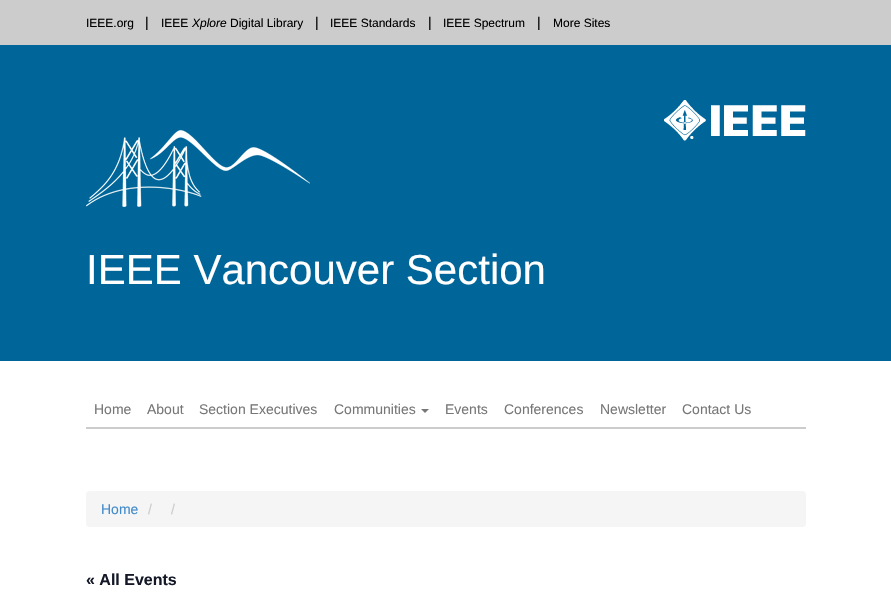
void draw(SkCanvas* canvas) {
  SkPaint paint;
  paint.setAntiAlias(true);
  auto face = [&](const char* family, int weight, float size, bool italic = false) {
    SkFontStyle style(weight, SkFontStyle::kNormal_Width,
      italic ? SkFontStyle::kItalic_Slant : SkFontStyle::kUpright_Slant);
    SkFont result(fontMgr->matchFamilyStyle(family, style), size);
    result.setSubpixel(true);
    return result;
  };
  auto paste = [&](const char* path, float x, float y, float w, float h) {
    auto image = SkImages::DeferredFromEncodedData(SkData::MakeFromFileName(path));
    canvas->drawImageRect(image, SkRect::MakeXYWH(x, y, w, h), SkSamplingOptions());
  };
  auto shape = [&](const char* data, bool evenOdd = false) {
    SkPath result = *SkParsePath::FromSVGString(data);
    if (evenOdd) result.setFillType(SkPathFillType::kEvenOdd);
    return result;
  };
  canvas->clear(0xffffffff);
  paint.setColor(0xffcccccc);
  canvas->drawRect(SkRect::MakeXYWH(0, 0, 891, 45), paint);
  paint.setColor(0xff006699);
  canvas->drawRect(SkRect::MakeXYWH(0, 45, 891, 316), paint);
  paste("img/1.png", 664, 100, 142, 41);
  paste("img/2.png", 86, 130, 224, 77);
  paint.setColor(0xffcccccc);
  canvas->drawRect(SkRect::MakeXYWH(86, 427, 720, 2), paint);
  paint.setColor(0xff777777);
  canvas->drawPath(shape("M421 409H429L425 413Z"), paint);
  paint.setColor(0xfff5f5f5);
  canvas->drawRoundRect(SkRect::MakeXYWH(86, 491, 720, 36), 4, 4, paint);
  auto f0 = face("Liberation Sans", 400, 12);
  paint.setColor(0xff000000);
  canvas->drawString("IEEE.org", 86, 27, f0, paint);
  auto f1 = face("Liberation Sans", 400, 14);
  canvas->drawString("|", 145, 27, f1, paint);
  canvas->drawString("IEEE", 161, 27, f0, paint);
  auto f2 = face("Liberation Sans", 400, 12, true);
  canvas->drawString("Xplore", 192, 27, f2, paint);
  canvas->drawString("Digital Library", 230, 27, f0, paint);
  canvas->drawString("|", 315, 27, f1, paint);
  canvas->drawString("IEEE Standards", 330, 27, f0, paint);
  canvas->drawString("|", 428, 27, f1, paint);
  canvas->drawString("IEEE Spectrum", 443, 27, f0, paint);
  canvas->drawString("|", 537, 27, f1, paint);
  canvas->drawString("More Sites", 553, 27, f0, paint);
  auto f3 = face("Liberation Sans", 400, 42);
  paint.setColor(0xffffffff);
  canvas->drawString("IEEE Vancouver Section", 86, 284, f3, paint);
  paint.setColor(0xff777777);
  {
    const struct { const char* s; float x, y; } items[] = {
      {"Home", 94, 414},
      {"About", 147, 414},
      {"Section Executives", 199, 414},
      {"Communities", 334, 414},
      {"Events", 445, 414},
      {"Conferences", 504, 414},
      {"Newsletter", 600, 414},
      {"Contact Us", 682, 414},
    };
    for (auto [s, x, y] : items) {
      canvas->drawString(s, x, y, f1, paint);
    }
  }
  paint.setColor(0xff428bca);
  canvas->drawString("Home", 101, 514, f1, paint);
  paint.setColor(0xffcccccc);
  canvas->drawString("/", 148, 514, f1, paint);
  canvas->drawString("/", 171, 514, f1, paint);
  auto f4 = face("Liberation Sans", 700, 16);
  paint.setColor(0xff141827);
  canvas->drawString("« All Events", 86, 585, f4, paint);
}
